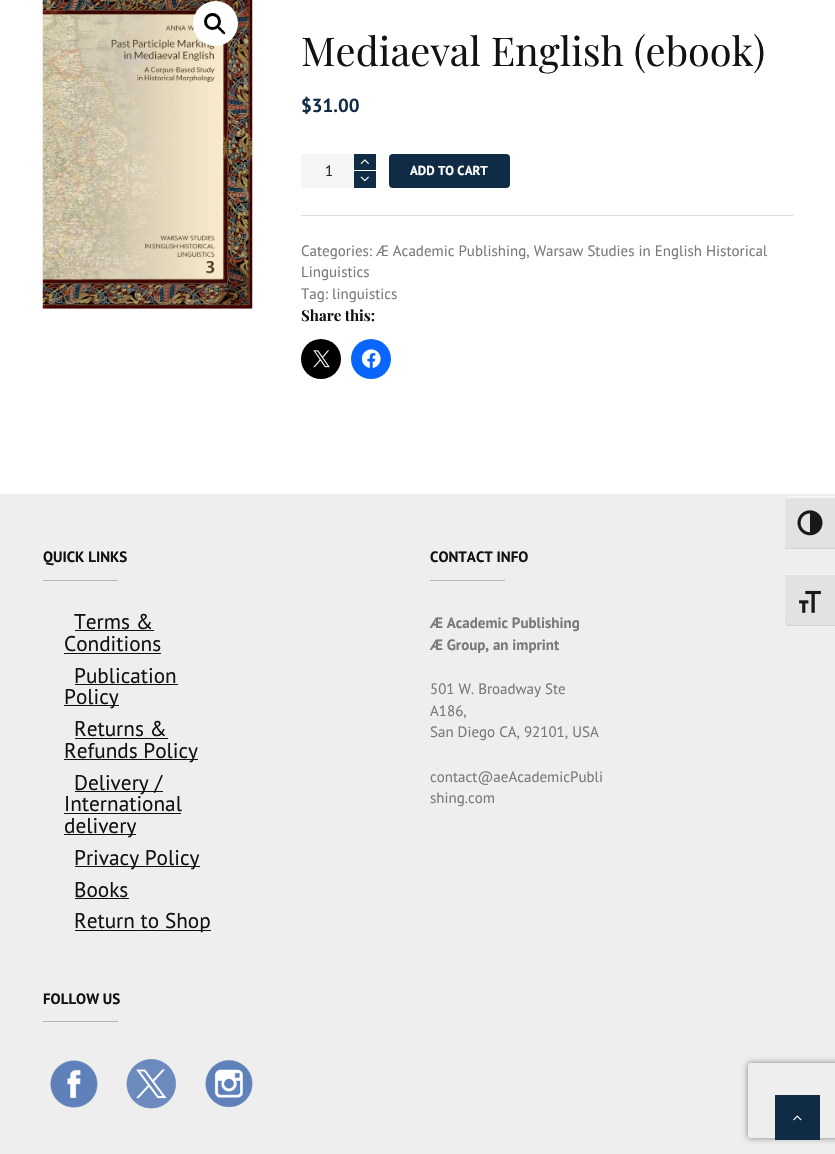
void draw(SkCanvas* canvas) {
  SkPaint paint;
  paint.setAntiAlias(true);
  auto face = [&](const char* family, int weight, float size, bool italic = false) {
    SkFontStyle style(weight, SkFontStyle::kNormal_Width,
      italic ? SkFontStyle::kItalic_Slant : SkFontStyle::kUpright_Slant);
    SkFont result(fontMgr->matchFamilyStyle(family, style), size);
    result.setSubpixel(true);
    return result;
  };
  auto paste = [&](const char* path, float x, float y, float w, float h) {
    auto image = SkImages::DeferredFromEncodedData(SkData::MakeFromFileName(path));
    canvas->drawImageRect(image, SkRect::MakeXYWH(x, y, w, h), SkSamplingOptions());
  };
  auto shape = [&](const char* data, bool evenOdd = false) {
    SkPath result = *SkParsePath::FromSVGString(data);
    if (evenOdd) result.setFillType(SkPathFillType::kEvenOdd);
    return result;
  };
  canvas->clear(0xffffffff);
  paste("img/1.png", 42, 0, 211, 309);
  paint.setColor(0xffffffff);
  canvas->drawCircle(215.5f, 23.5f, 22.5f, paint);
  paint.setStroke(true);
  paint.setStrokeWidth(3);
  paint.setColor(0xff000000);
  canvas->drawCircle(212.5f, 21.5f, 7, paint);
  paint.setStroke(false);
  canvas->drawPath(shape("M217.5 26.5C219 25.5 221.5 28.5 222 29.5C223 30 226 32.5 225 34C223.5 35 221 32 220.5 31C219.5 30.5 216.5 28 217.5 26.5Z"), paint);
  {
    const struct { float x, y, w, h; SkColor color; } items[] = {
      {301, 215, 492, 1, 0xffdddddd},
      {301, 154, 53, 34, 0xfff5f5f4},
      {354, 154, 22, 16, 0xff102b45},
    };
    for (auto [x, y, w, h, color] : items) {
      paint.setColor(color);
      canvas->drawRect(SkRect::MakeXYWH(x, y, w, h), paint);
    }
  }
  paste("img/2.png", 360, 159, 9, 6);
  canvas->drawRect(SkRect::MakeXYWH(354, 171, 22, 17), paint);
  paste("img/3.png", 360, 176, 9, 6);
  canvas->drawRoundRect(SkRect::MakeXYWH(389, 154, 121, 34), 4, 4, paint);
  paint.setColor(0xff000000);
  canvas->drawCircle(321, 359, 20, paint);
  paste("img/4.png", 313, 350, 17, 18);
  paint.setColor(0xff0866ff);
  canvas->drawCircle(371, 359, 20, paint);
  paste("img/5.png", 361, 349, 20, 19);
  {
    const struct { float x, y, w, h; SkColor color; } items[] = {
      {0, 494, 835, 660, 0xffeeeeee},
      {43, 580, 75, 1, 0xffb4b4b4},
      {75, 630, 79, 1, 0xff121212},
      {64, 653, 97, 1, 0xff121212},
      {75, 684, 103, 1, 0xff121212},
      {64, 705, 55, 1, 0xff121212},
      {75, 738, 93, 1, 0xff121212},
      {64, 759, 134, 1, 0xff121212},
      {75, 791, 88, 1, 0xff121212},
      {64, 813, 117, 1, 0xff121212},
      {64, 834, 72, 1, 0xff121212},
      {75, 866, 125, 1, 0xff121212},
      {75, 898, 54, 1, 0xff121212},
      {75, 930, 136, 1, 0xff121212},
      {430, 580, 75, 1, 0xffb4b4b4},
      {43, 1021, 75, 1, 0xffb4b4b4},
    };
    for (auto [x, y, w, h, color] : items) {
      paint.setColor(color);
      canvas->drawRect(SkRect::MakeXYWH(x, y, w, h), paint);
    }
  }
  paste("img/6.png", 50, 1060, 48, 48);
  paste("img/7.png", 126, 1059, 50, 50);
  paste("img/8.png", 205, 1059, 48, 49);
  paint.setColor(0xffe2e2e2);
  canvas->drawPath(shape("M790 496H835V549H785V501C785 498 787 496 790 496Z"), paint);
  paint.setColor(0xfff5f5f5);
  canvas->drawPath(shape("M790 498C787 498 785 499 785 501C785 499 786 497 788 496H835V498Z"), paint);
  paint.setColor(0xffd2d2d2);
  canvas->drawRect(SkRect::MakeXYWH(785, 548, 50, 1), paint);
  paste("img/9.png", 797, 510, 26, 26);
  paint.setColor(0xffe2e2e2);
  canvas->drawPath(shape("M785 574H835V626H790C787 626 785 624 785 621Z"), paint);
  paint.setColor(0xfff5f5f5);
  canvas->drawRect(SkRect::MakeXYWH(785, 574, 50, 1), paint);
  paint.setColor(0xffd2d2d2);
  canvas->drawPath(shape("M835 626V625H790C787 625 785 623 785 621C785 624 787 626 790 626Z"), paint);
  paste("img/10.png", 799, 590, 22, 23);
  canvas->save();
  canvas->clipPath(shape("M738 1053H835V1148H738ZM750.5 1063H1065.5C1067 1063 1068 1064 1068 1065.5V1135.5C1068 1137 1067 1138 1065.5 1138H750.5C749 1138 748 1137 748 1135.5V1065.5C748 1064 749 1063 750.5 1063Z", true), true);
  paint.setColor(0xff808080);
  paint.setMaskFilter(SkMaskFilter::MakeBlur(kNormal_SkBlurStyle, 3));
  canvas->drawRoundRect(SkRect::MakeXYWH(748, 1063, 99, 75), 2.5f, 2.5f, paint);
  paint.setMaskFilter(nullptr);
  canvas->restore();
  paint.setColor(0xff102b45);
  canvas->drawRect(SkRect::MakeXYWH(775, 1095, 45, 45), paint);
  paste("img/11.png", 793, 1115, 9, 6);
  auto f0 = face("Playfair Display", 400, 39.75f);
  paint.setColor(0xff121212);
  canvas->drawString("Mediaeval English (ebook)", 301, 66, f0, paint);
  auto f1 = face("PT Sans", 700, 19);
  paint.setColor(0xff102b45);
  canvas->drawString("$31.00", 301, 112, f1, paint);
  auto f2 = face("PT Sans", 400, 15);
  paint.setColor(0xff222222);
  canvas->drawString("1", 325, 176, f2, paint);
  auto f3 = face("PT Sans", 700, 13);
  paint.setColor(0xffffffff);
  canvas->drawString("ADD TO CART", 410, 175, f3, paint);
  paint.setColor(0xff797979);
  {
    const struct { const char* s; float x, y; } items[] = {
      {"Categories: Æ Academic Publishing, Warsaw Studies in English Historical", 301, 256},
      {"Linguistics", 301, 277},
      {"Tag: linguistics", 301, 299},
    };
    for (auto [s, x, y] : items) {
      canvas->drawString(s, x, y, f2, paint);
    }
  }
  auto f4 = face("Playfair Display", 700, 15);
  paint.setColor(0xff121212);
  canvas->drawString("Share this:", 301, 321, f4, paint);
  auto f5 = face("PT Sans", 700, 15);
  canvas->drawString("QUICK LINKS", 43, 562, f5, paint);
  auto f6 = face("PT Sans", 400, 21.25f);
  {
    const struct { const char* s; float x, y; } items[] = {
      {"Terms &", 74, 629},
      {"Conditions", 64, 651},
      {"Publication", 74, 683},
      {"Policy", 64, 704},
      {"Returns &", 74, 736},
      {"Refunds Policy", 64, 758},
      {"Delivery /", 74, 790},
      {"International", 64, 811},
      {"delivery", 64, 833},
      {"Privacy Policy", 74, 865},
      {"Books", 74, 897},
      {"Return to Shop", 74, 928},
    };
    for (auto [s, x, y] : items) {
      canvas->drawString(s, x, y, f6, paint);
    }
  }
  canvas->drawString("CONTACT INFO", 430, 562, f5, paint);
  paint.setColor(0xff797979);
  canvas->drawString("Æ Academic Publishing", 430, 628, f5, paint);
  canvas->drawString("Æ Group, an imprint", 430, 650, f5, paint);
  {
    const struct { const char* s; float x, y; } items[] = {
      {"501 W. Broadway Ste", 430, 694},
      {"A186,", 430, 716},
      {"San Diego CA, 92101, USA", 430, 737},
      {"contact@aeAcademicPubli", 430, 782},
      {"shing.com", 430, 803},
    };
    for (auto [s, x, y] : items) {
      canvas->drawString(s, x, y, f2, paint);
    }
  }
  paint.setColor(0xff121212);
  canvas->drawString("FOLLOW US", 43, 1004, f5, paint);
}
